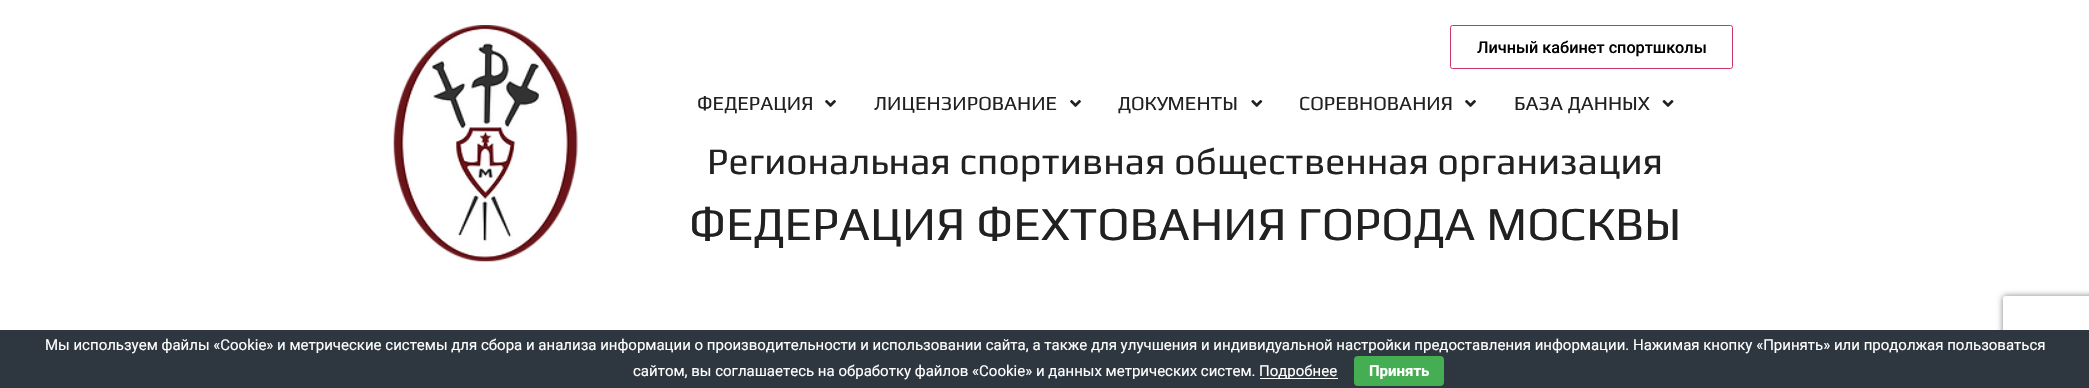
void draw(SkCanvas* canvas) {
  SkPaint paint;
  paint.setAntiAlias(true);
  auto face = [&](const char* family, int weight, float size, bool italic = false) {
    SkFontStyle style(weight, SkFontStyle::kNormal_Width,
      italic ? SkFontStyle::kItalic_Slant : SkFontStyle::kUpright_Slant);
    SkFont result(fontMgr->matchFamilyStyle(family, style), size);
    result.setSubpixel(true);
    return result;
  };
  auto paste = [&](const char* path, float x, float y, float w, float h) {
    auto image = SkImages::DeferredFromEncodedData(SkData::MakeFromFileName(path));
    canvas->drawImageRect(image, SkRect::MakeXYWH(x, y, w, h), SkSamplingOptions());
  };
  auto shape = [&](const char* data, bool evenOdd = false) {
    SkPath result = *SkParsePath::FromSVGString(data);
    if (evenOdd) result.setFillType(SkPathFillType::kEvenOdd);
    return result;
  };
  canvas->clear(0xffffffff);
  paste("img/1.png", 393, 25, 185, 237);
  paint.setStroke(true);
  paint.setStrokeWidth(1);
  paint.setColor(0xffcc3366);
  canvas->drawRoundRect(SkRect::MakeXYWH(1450.5f, 25.5f, 282, 43), 2, 2, paint);
  paste("img/2.png", 825, 100, 11, 7);
  paste("img/2.png", 1070, 100, 11, 7);
  paste("img/3.png", 1251, 100, 12, 7);
  paste("img/2.png", 1465, 100, 11, 7);
  paste("img/4.png", 1662, 100, 12, 7);
  canvas->save();
  canvas->clipPath(shape("M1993 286H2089V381H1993ZM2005.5 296H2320.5C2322 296 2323 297 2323 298.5V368.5C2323 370 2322 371 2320.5 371H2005.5C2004 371 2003 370 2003 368.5V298.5C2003 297 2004 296 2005.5 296Z", true), true);
  paint.setStroke(false);
  paint.setColor(0xff808080);
  paint.setMaskFilter(SkMaskFilter::MakeBlur(kNormal_SkBlurStyle, 3));
  canvas->drawRoundRect(SkRect::MakeXYWH(2003, 296, 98, 75), 2.5f, 2.5f, paint);
  paint.setMaskFilter(nullptr);
  canvas->restore();
  paint.setColor(0xff2e363f);
  canvas->drawRect(SkRect::MakeXYWH(0, 330, 2089, 58), paint);
  paint.setColor(0xffffffff);
  canvas->drawRect(SkRect::MakeXYWH(1260, 378, 78, 1), paint);
  paint.setColor(0xff45ae52);
  canvas->drawRoundRect(SkRect::MakeXYWH(1354, 356, 90, 30), 4, 4, paint);
  auto f0 = face("Roboto", 500, 16.25f);
  paint.setColor(0xff000000);
  canvas->drawString("Личный кабинет спортшколы", 1477, 53, f0, paint);
  auto f1 = face("Play", 400, 20);
  paint.setColor(0xff212121);
  {
    const struct { const char* s; float x, y; } items[] = {
      {"ФЕДЕРАЦИЯ", 697, 110},
      {"ЛИЦЕНЗИРОВАНИЕ", 874, 110},
      {"ДОКУМЕНТЫ", 1118, 110},
      {"СОРЕВНОВАНИЯ", 1299, 110},
      {"БАЗА ДАННЫХ", 1514, 110},
    };
    for (auto [s, x, y] : items) {
      canvas->drawString(s, x, y, f1, paint);
    }
  }
  auto f2 = face("Play", 400, 37.5f);
  canvas->drawString("Региональная спортивная общественная организация", 707, 174, f2, paint);
  auto f3 = face("Play", 400, 47.5f);
  canvas->drawString("ФЕДЕРАЦИЯ ФЕХТОВАНИЯ ГОРОДА МОСКВЫ", 689, 240, f3, paint);
  auto f4 = face("Roboto", 400, 15);
  paint.setColor(0xffffffff);
  {
    const struct { const char* s; float x, y; } items[] = {
      {"Мы используем файлы «Cookie» и метрические системы для сбора и анализа информации о производительности и использовании сайта, а также для улучшения и индивидуальной настройки предоставления информации. Нажимая кнопку «Принять» или продолжая пользоваться", 45, 350},
      {"сайтом, вы соглашаетесь на обработку файлов «Cookie» и данных метрических систем.", 633, 376},
      {"Подробнее", 1259, 376},
    };
    for (auto [s, x, y] : items) {
      canvas->drawString(s, x, y, f4, paint);
    }
  }
  auto f5 = face("Roboto", 700, 15);
  canvas->drawString("Принять", 1369, 376, f5, paint);
}
